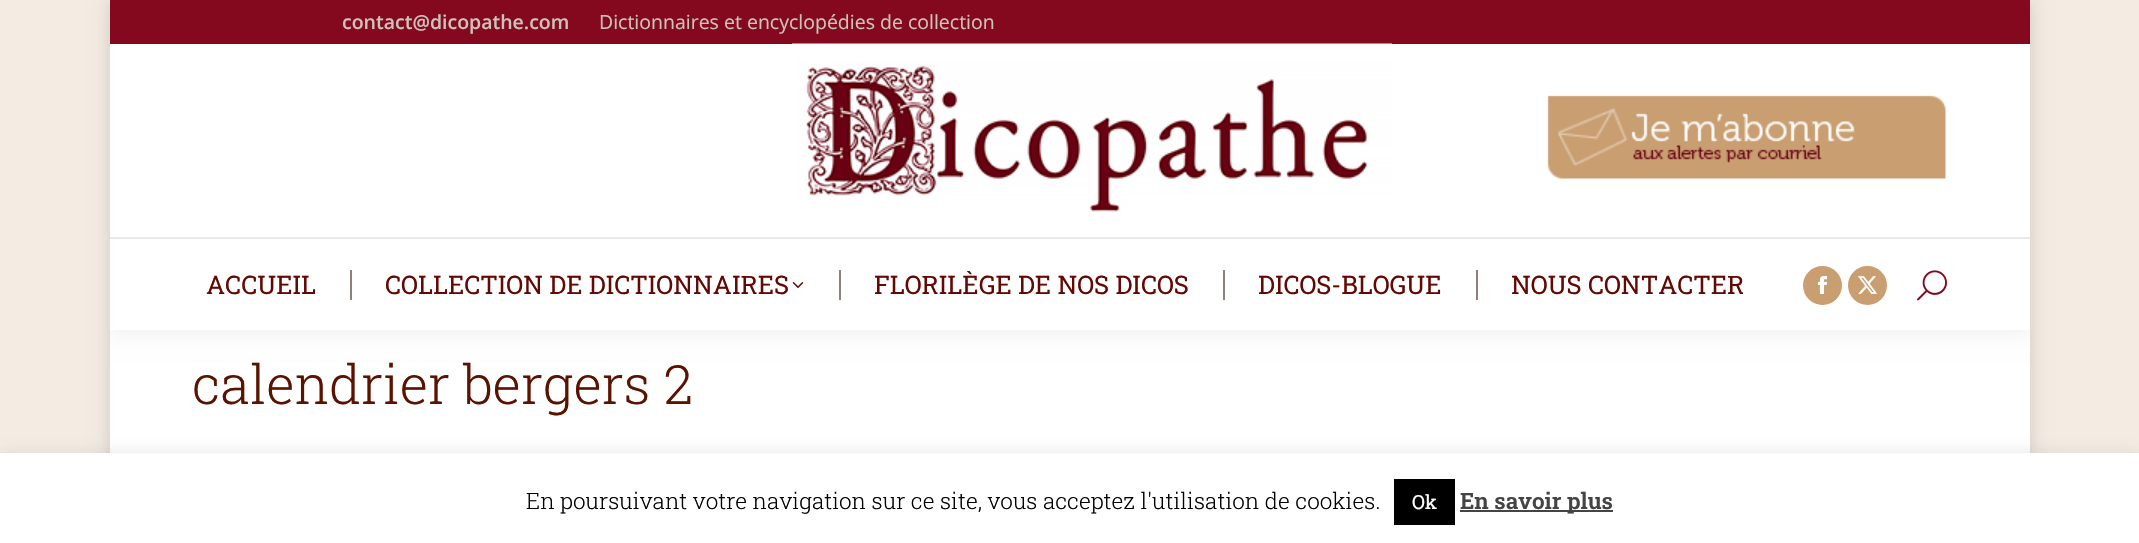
void draw(SkCanvas* canvas) {
  SkPaint paint;
  paint.setAntiAlias(true);
  auto face = [&](const char* family, int weight, float size, bool italic = false) {
    SkFontStyle style(weight, SkFontStyle::kNormal_Width,
      italic ? SkFontStyle::kItalic_Slant : SkFontStyle::kUpright_Slant);
    SkFont result(fontMgr->matchFamilyStyle(family, style), size);
    result.setSubpixel(true);
    return result;
  };
  auto paste = [&](const char* path, float x, float y, float w, float h) {
    auto image = SkImages::DeferredFromEncodedData(SkData::MakeFromFileName(path));
    canvas->drawImageRect(image, SkRect::MakeXYWH(x, y, w, h), SkSamplingOptions());
  };
  canvas->clear(0xfff4ece3);
  paint.setColor(0x26000000);
  paint.setMaskFilter(SkMaskFilter::MakeBlur(kNormal_SkBlurStyle, 9));
  canvas->drawRect(SkRect::MakeXYWH(110, 0, 1920, 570), paint);
  paint.setMaskFilter(nullptr);
  paint.setColor(0xffffffff);
  canvas->drawRect(SkRect::MakeXYWH(110, 330, 1920, 123), paint);
  canvas->save();
  canvas->clipRect(SkRect::MakeXYWH(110, 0, 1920, 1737));
  paint.setColor(0x12000000);
  paint.setMaskFilter(SkMaskFilter::MakeBlur(kNormal_SkBlurStyle, 11));
  canvas->drawRect(SkRect::MakeXYWH(108, -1, 1923, 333), paint);
  paint.setMaskFilter(nullptr);
  canvas->restore();
  paint.setColor(0xffffffff);
  canvas->drawRect(SkRect::MakeXYWH(110, 44, 1920, 286), paint);
  paint.setColor(0xff84091f);
  canvas->drawRect(SkRect::MakeXYWH(110, 0, 1920, 44), paint);
  paste("img/1.png", 792, 43, 600, 169);
  paste("img/2.png", 1547, 95, 399, 84);
  paint.setColor(0xffe9e9e9);
  canvas->drawRect(SkRect::MakeXYWH(110, 237, 1920, 2), paint);
  paint.setColor(0xff917e7d);
  canvas->drawRect(SkRect::MakeXYWH(350, 270, 2, 30), paint);
  paste("img/3.png", 792, 282, 12, 6);
  {
    const struct { float x, y, w, h; SkColor color; } items[] = {
      {839, 270, 2, 30, 0xff917e7d},
      {1223, 270, 2, 30, 0xff917e7d},
      {1476, 270, 2, 30, 0xff917e7d},
    };
    for (auto [x, y, w, h, color] : items) {
      paint.setColor(color);
      canvas->drawRect(SkRect::MakeXYWH(x, y, w, h), paint);
    }
  }
  paint.setColor(0xffc99e70);
  canvas->drawCircle(1822.5f, 285.5f, 19.5f, paint);
  paste("img/4.png", 1818, 276, 9, 18);
  canvas->drawCircle(1867.5f, 285.5f, 19.5f, paint);
  paste("img/5.png", 1858, 276, 20, 18);
  paste("img/6.png", 1917, 270, 30, 31);
  paint.setColor(0x4dacabab);
  paint.setMaskFilter(SkMaskFilter::MakeBlur(kNormal_SkBlurStyle, 7.5f));
  canvas->drawRect(SkRect::MakeXYWH(0, 452, 2139, 90), paint);
  paint.setMaskFilter(nullptr);
  {
    const struct { float x, y, w, h; SkColor color; } items[] = {
      {0, 453, 2139, 90, 0xffffffff},
      {1394, 479, 61, 46, 0xff000000},
      {1460, 510, 153, 2, 0xff444444},
    };
    for (auto [x, y, w, h, color] : items) {
      paint.setColor(color);
      canvas->drawRect(SkRect::MakeXYWH(x, y, w, h), paint);
    }
  }
  auto f0 = face("Open Sans", 600, 19.5f);
  paint.setColor(0xffccc4bb);
  canvas->drawString("contact@dicopathe.com", 342, 29, f0, paint);
  auto f1 = face("Open Sans", 400, 19.5f);
  canvas->drawString("Dictionnaires et encyclopédies de collection", 599, 29, f1, paint);
  auto f2 = face("Roboto Slab", 400, 25.5f);
  paint.setColor(0xff630803);
  {
    const struct { const char* s; float x, y; } items[] = {
      {"ACCUEIL", 206, 294},
      {"COLLECTION DE DICTIONNAIRES", 385, 294},
      {"FLORILÈGE DE NOS DICOS", 874, 294},
      {"DICOS-BLOGUE", 1258, 294},
      {"NOUS CONTACTER", 1511, 294},
    };
    for (auto [s, x, y] : items) {
      canvas->drawString(s, x, y, f2, paint);
    }
  }
  auto f3 = face("Roboto Slab", 300, 54);
  paint.setColor(0xff591300);
  canvas->drawString("calendrier bergers 2", 192, 404, f3, paint);
  auto f4 = face("Roboto Slab", 300, 22.5f);
  paint.setColor(0xff000000);
  canvas->drawString("En poursuivant votre navigation sur ce site, vous acceptez l'utilisation de cookies.", 526, 509, f4, paint);
  auto f5 = face("Roboto Slab", 400, 19.5f);
  paint.setColor(0xffffffff);
  canvas->drawString("Ok", 1412, 509, f5, paint);
  auto f6 = face("Roboto Slab", 600, 22.5f);
  paint.setColor(0xff444444);
  canvas->drawString("En savoir plus", 1460, 509, f6, paint);
}
